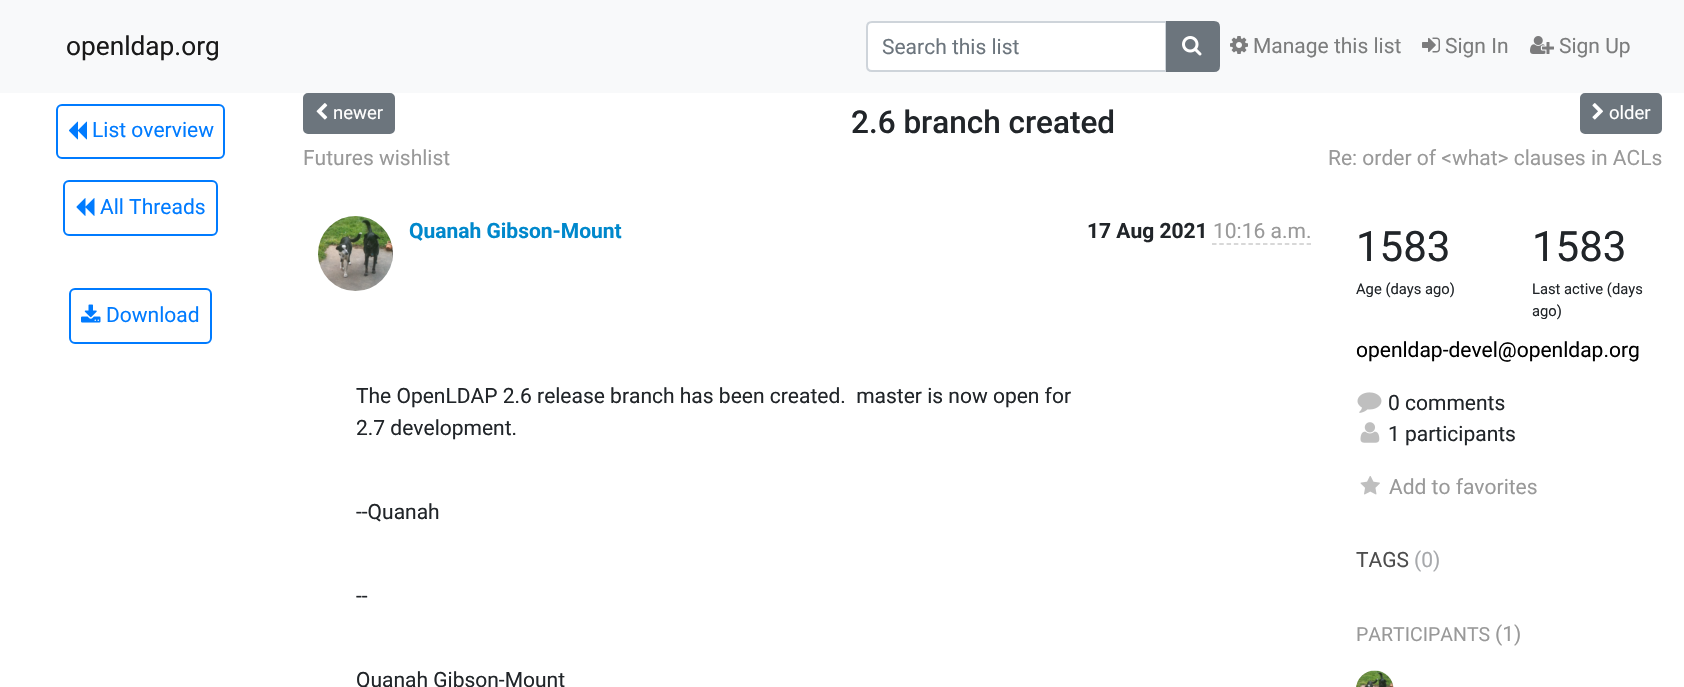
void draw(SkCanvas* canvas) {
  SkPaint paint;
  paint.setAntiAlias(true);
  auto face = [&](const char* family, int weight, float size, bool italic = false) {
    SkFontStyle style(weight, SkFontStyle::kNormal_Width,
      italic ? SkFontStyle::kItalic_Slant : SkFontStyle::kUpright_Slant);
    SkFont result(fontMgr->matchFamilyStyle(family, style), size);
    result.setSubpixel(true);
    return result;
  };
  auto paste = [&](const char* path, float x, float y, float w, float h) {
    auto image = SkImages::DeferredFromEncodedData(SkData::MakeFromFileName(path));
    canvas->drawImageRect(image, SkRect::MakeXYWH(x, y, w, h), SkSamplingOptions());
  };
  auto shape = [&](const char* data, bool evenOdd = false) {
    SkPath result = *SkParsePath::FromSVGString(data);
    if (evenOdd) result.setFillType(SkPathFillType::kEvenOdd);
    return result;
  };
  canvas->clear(0xffffffff);
  paint.setColor(0xfff8f9fa);
  canvas->drawRect(SkRect::MakeXYWH(0, 0, 1684, 93), paint);
  paint.setColor(0xffffffff);
  canvas->drawPath(shape("M872 22H1166V71H872C869 71 867 69 867 66V27C867 24 869 22 872 22Z"), paint);
  paint.setStroke(true);
  paint.setStrokeWidth(2);
  paint.setColor(0xffced4da);
  canvas->drawPath(shape("M872 22H1166V71H872C869 71 867 69 867 66V27C867 24 869 22 872 22Z"), paint);
  paint.setStroke(false);
  paint.setColor(0xff6c757d);
  canvas->drawPath(shape("M1167 22H1214C1217 22 1219 24 1219 27V66C1219 69 1217 71 1214 71H1167Z"), paint);
  paint.setStroke(true);
  canvas->drawPath(shape("M1167 22H1214C1217 22 1219 24 1219 27V66C1219 69 1217 71 1214 71H1167Z"), paint);
  paste("img/1.png", 1182, 36, 20, 20);
  paste("img/2.png", 1230, 36, 18, 18);
  paste("img/3.png", 1422, 37, 18, 16);
  paste("img/4.png", 1530, 36, 24, 18);
  paint.setColor(0xff007bff);
  canvas->drawRoundRect(SkRect::MakeXYWH(57, 105, 167, 53), 5, 5, paint);
  paste("img/5.png", 69, 121, 18, 19);
  canvas->drawRoundRect(SkRect::MakeXYWH(64, 181, 153, 54), 5, 5, paint);
  paste("img/6.png", 76, 198, 19, 18);
  canvas->drawRoundRect(SkRect::MakeXYWH(70, 289, 141, 54), 5, 5, paint);
  paste("img/7.png", 81, 304, 20, 19);
  paint.setStroke(false);
  paint.setColor(0xff6c757d);
  canvas->drawRoundRect(SkRect::MakeXYWH(304, 94, 90, 39), 4, 4, paint);
  paint.setStroke(true);
  canvas->drawRoundRect(SkRect::MakeXYWH(304, 94, 90, 39), 4, 4, paint);
  paste("img/8.png", 316, 103, 12, 17);
  paint.setStroke(false);
  canvas->drawRoundRect(SkRect::MakeXYWH(1581, 94, 80, 39), 4, 4, paint);
  paint.setStroke(true);
  canvas->drawRoundRect(SkRect::MakeXYWH(1581, 94, 80, 39), 4, 4, paint);
  paste("img/9.png", 1592, 103, 11, 17);
  paste("img/10.png", 318, 216, 75, 75);
  paint.setStrokeWidth(1.5f);
  paint.setColor(0xffcccccc);
  paint.setPathEffect(SkDashPathEffect::Make({{4.5f, 2.78f}}, 0));
  canvas->drawPath(shape("M1212 244H1311"), paint);
  paint.setPathEffect(nullptr);
  paste("img/11.png", 1357, 392, 25, 21);
  paste("img/12.png", 1360, 422, 20, 21);
  paste("img/13.png", 1360, 476, 20, 19);
  paste("img/14.png", 1356, 670, 38, 17);
  auto f0 = face("Roboto", 400, 26.25f);
  paint.setStroke(false);
  paint.setColor(0xff191919);
  canvas->drawString("openldap.org", 66, 55, f0, paint);
  auto f1 = face("Roboto", 400, 21);
  paint.setColor(0xff6c757d);
  canvas->drawString("Search this list", 882, 54, f1, paint);
  paint.setColor(0xff7c7d7d);
  {
    const struct { const char* s; float x, y; } items[] = {
      {"Manage this list", 1253, 53},
      {"Sign In", 1445, 53},
      {"Sign Up", 1559, 53},
    };
    for (auto [s, x, y] : items) {
      canvas->drawString(s, x, y, f1, paint);
    }
  }
  paint.setColor(0xff007bff);
  {
    const struct { const char* s; float x, y; } items[] = {
      {"List overview", 92, 137},
      {"All Threads", 100, 214},
      {"Download", 106, 322},
    };
    for (auto [s, x, y] : items) {
      canvas->drawString(s, x, y, f1, paint);
    }
  }
  auto f2 = face("Roboto", 400, 18.5f);
  paint.setColor(0xffffffff);
  canvas->drawString("newer", 333, 119, f2, paint);
  auto f3 = face("Roboto", 500, 31.5f);
  paint.setColor(0xff212529);
  canvas->drawString("2.6 branch created", 851, 133, f3, paint);
  paint.setColor(0xffffffff);
  canvas->drawString("older", 1609, 119, f2, paint);
  paint.setColor(0xff999999);
  canvas->drawString("Futures wishlist", 303, 165, f1, paint);
  canvas->drawString("Re: order of <what> clauses in ACLs", 1328, 165, f1, paint);
  auto f4 = face("Roboto", 700, 21);
  paint.setColor(0xff0088cc);
  canvas->drawString("Quanah Gibson-Mount", 409, 238, f4, paint);
  paint.setColor(0xff212529);
  canvas->drawString("17 Aug 2021", 1087, 238, f4, paint);
  paint.setColor(0xff999999);
  canvas->drawString("10:16 a.m.", 1213, 238, f1, paint);
  paint.setColor(0xff212529);
  {
    const struct { const char* s; float x, y; } items[] = {
      {"The OpenLDAP 2.6 release branch has been created.  master is now open for", 356, 403},
      {"2.7 development.", 356, 435},
      {"--Quanah", 356, 519},
      {"--", 356, 603},
      {"Quanah Gibson-Mount", 356, 687},
    };
    for (auto [s, x, y] : items) {
      canvas->drawString(s, x, y, f1, paint);
    }
  }
  auto f5 = face("Roboto", 400, 42);
  canvas->drawString("1583", 1356, 261, f5, paint);
  auto f6 = face("Roboto", 400, 14.75f);
  canvas->drawString("Age (days ago)", 1356, 294, f6, paint);
  canvas->drawString("1583", 1532, 261, f5, paint);
  canvas->drawString("Last active (days", 1532, 294, f6, paint);
  canvas->drawString("ago)", 1532, 316, f6, paint);
  paint.setColor(0xff000000);
  canvas->drawString("openldap-devel@openldap.org", 1356, 357, f1, paint);
  paint.setColor(0xff212529);
  canvas->drawString("0 comments", 1388, 410, f1, paint);
  canvas->drawString("1 participants", 1388, 441, f1, paint);
  paint.setColor(0xff999999);
  canvas->drawString("Add to favorites", 1389, 494, f1, paint);
  paint.setColor(0xff4d4d4d);
  canvas->drawString("TAGS", 1356, 567, f1, paint);
  paint.setColor(0xffa7a9ac);
  canvas->drawString("(0)", 1414, 567, f1, paint);
  auto f7 = face("Roboto", 400, 19.5f);
  paint.setColor(0xff999999);
  canvas->drawString("PARTICIPANTS", 1356, 641, f7, paint);
  canvas->drawString("(1)", 1495, 641, f1, paint);
}
